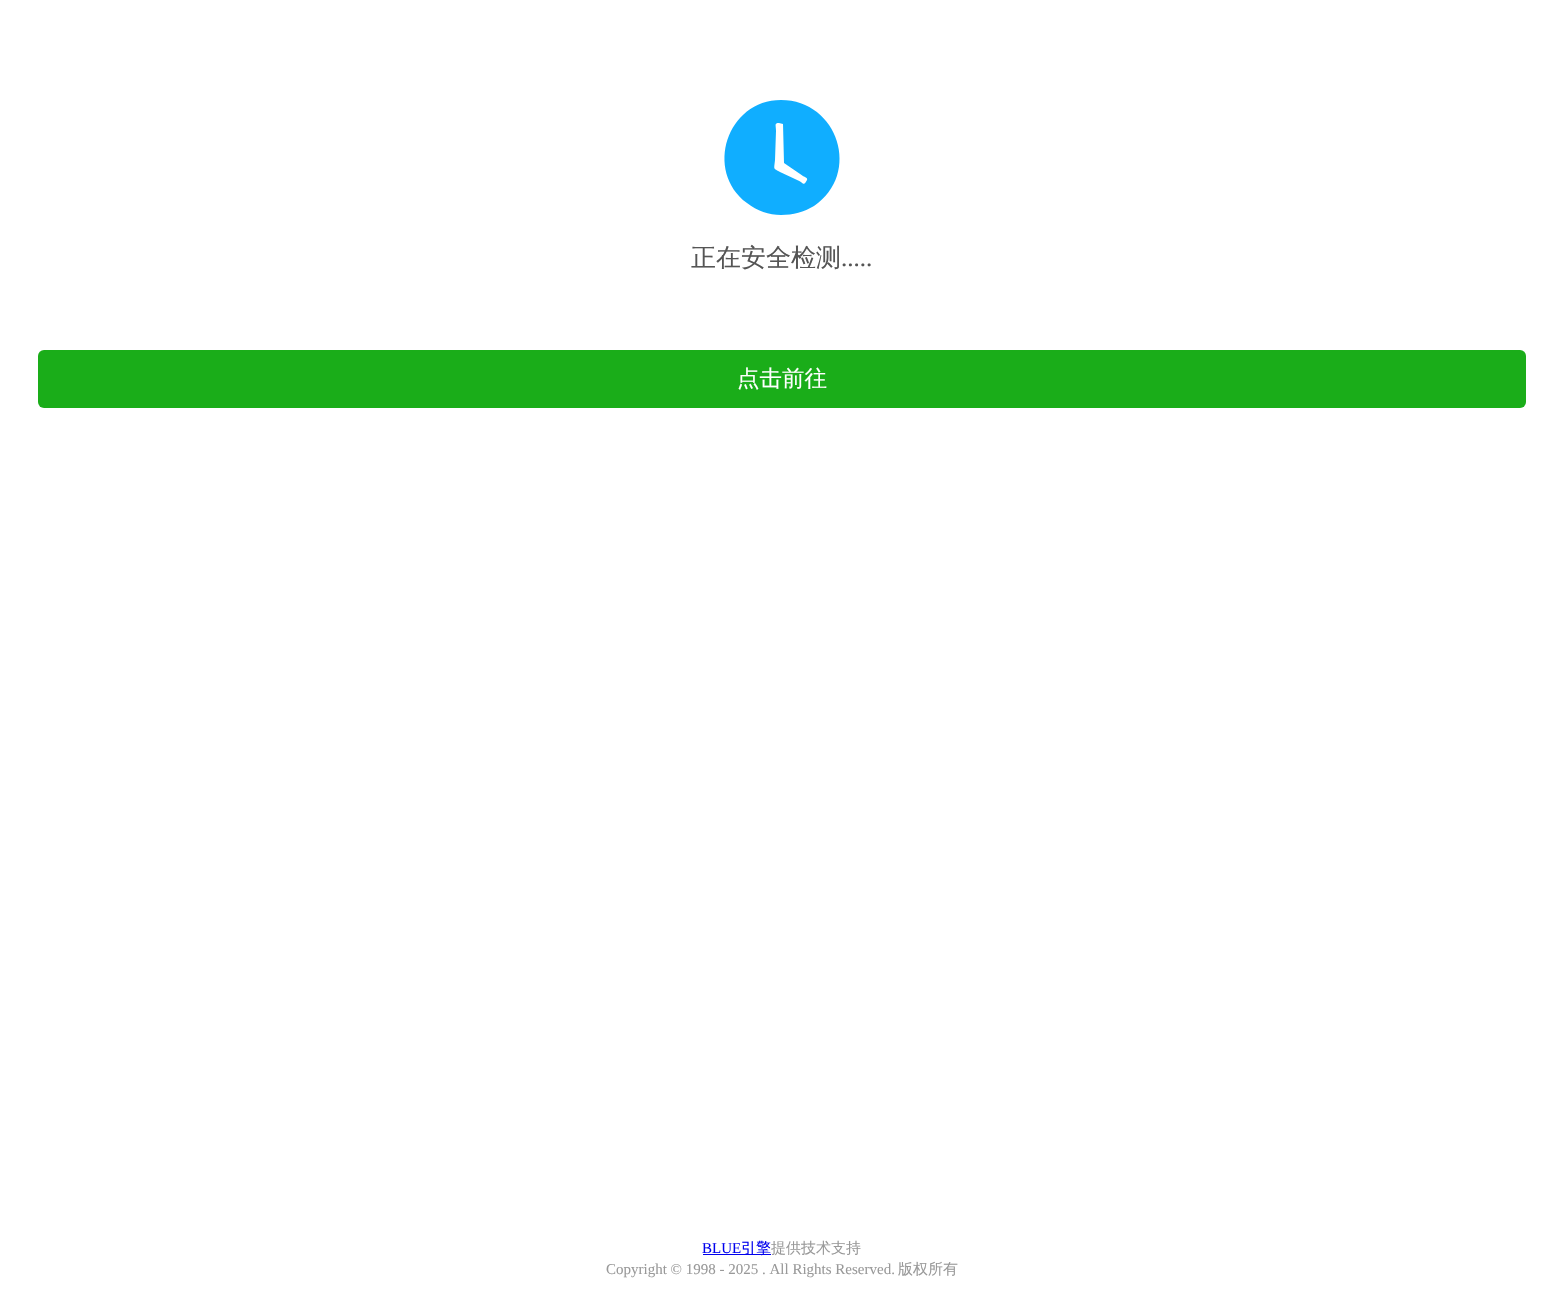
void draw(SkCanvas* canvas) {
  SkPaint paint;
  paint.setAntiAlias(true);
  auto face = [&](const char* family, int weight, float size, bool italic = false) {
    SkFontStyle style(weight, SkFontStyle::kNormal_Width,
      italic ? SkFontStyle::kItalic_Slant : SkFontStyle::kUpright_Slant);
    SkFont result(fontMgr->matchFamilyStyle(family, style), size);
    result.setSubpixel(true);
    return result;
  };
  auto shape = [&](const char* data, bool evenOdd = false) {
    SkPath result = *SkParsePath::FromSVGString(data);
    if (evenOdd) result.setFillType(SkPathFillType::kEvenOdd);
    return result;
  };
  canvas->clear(0xffffffff);
  paint.setColor(0xff10aeff);
  canvas->drawPath(shape("M781 100C727 100 704 171 747 203C757 211 769 215 781 215C793 215 804 212 814 206C862 174 838 100 781 100ZM807 180C803 187 805 183 795 179L780 172C773 168 774 170 775 160L776 131C776 125 774 123 779 123L783 124L784 163L803 176C805 177 808 178 807 180Z"), paint);
  paint.setColor(0xff1aad19);
  canvas->drawRoundRect(SkRect::MakeXYWH(38, 350, 1488, 58), 6, 6, paint);
  paint.setColor(0xff0000ee);
  canvas->drawRect(SkRect::MakeXYWH(703, 1254, 68, 1), paint);
  auto f0 = face("WenQuanYi Zen Hei", 500, 25);
  paint.setColor(0xff555555);
  canvas->drawString("正在安全检测", 691, 266, f0, paint);
  auto f1 = face("Liberation Serif", 400, 25);
  canvas->drawString(".....", 841, 266, f1, paint);
  auto f2 = face("WenQuanYi Zen Hei", 500, 22.5f);
  paint.setColor(0xffffffff);
  canvas->drawString("点击前往", 737, 386, f2, paint);
  auto f3 = face("Liberation Serif", 400, 15);
  paint.setColor(0xff0000ee);
  canvas->drawString("BLUE", 702, 1253, f3, paint);
  auto f4 = face("WenQuanYi Zen Hei", 500, 15);
  canvas->drawString("引擎", 741, 1253, f4, paint);
  paint.setColor(0xff999999);
  canvas->drawString("提供技术支持", 771, 1253, f4, paint);
  canvas->drawString("Copyright © 1998 - 2025 . All Rights Reserved.", 606, 1274, f3, paint);
  canvas->drawString("版权所有", 898, 1274, f4, paint);
}
